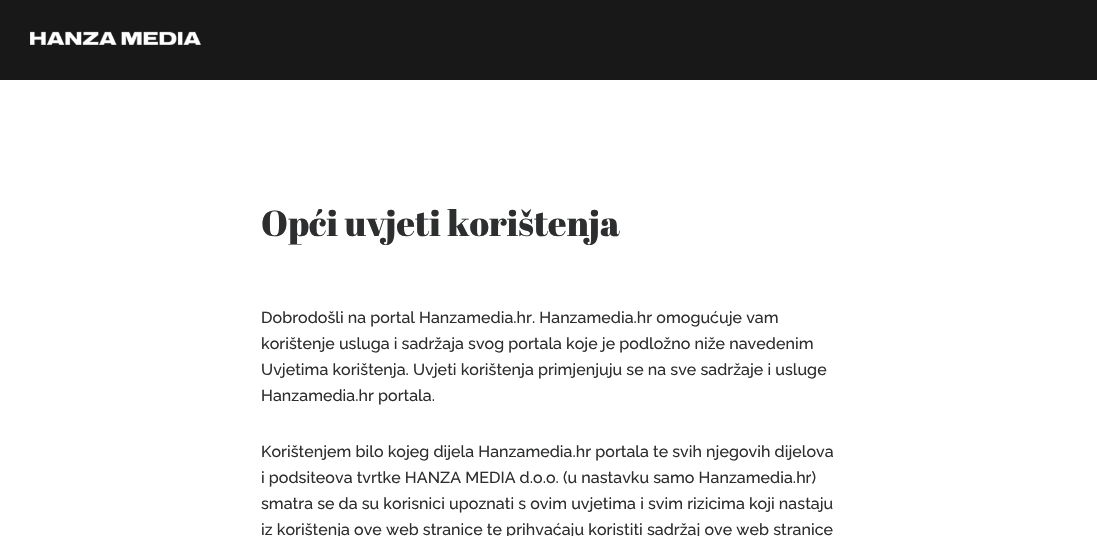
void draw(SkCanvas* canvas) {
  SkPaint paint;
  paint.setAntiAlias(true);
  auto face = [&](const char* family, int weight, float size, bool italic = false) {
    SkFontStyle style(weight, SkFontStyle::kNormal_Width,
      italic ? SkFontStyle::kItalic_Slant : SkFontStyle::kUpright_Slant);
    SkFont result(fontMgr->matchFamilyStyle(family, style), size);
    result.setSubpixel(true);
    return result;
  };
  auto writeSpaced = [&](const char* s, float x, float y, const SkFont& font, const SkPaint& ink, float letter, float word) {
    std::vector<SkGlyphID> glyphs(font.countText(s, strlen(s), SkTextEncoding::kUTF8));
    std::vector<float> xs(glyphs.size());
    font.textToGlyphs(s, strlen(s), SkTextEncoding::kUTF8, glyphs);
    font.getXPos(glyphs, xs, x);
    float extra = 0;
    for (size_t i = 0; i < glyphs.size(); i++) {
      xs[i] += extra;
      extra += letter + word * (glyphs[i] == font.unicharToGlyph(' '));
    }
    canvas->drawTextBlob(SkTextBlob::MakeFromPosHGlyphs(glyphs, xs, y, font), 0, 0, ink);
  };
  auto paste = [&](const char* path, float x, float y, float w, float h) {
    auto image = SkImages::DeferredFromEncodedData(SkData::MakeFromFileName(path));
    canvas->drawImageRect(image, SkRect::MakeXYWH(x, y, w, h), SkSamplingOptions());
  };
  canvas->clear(0xffffffff);
  paint.setColor(0xff181818);
  canvas->drawRect(SkRect::MakeXYWH(0, 0, 1097, 80), paint);
  paste("img/1.png", 30, 31, 171, 14);
  auto f0 = face("Abril Fatface", 400, 36);
  paint.setColor(0xff2d2e2f);
  canvas->drawString("Opći uvjeti korištenja", 261, 236, f0, paint);
  auto f1 = face("Raleway", 500, 16);
  {
    const struct { const char* s; float x, y; } items[] = {
      {"Dobrodošli na portal Hanzamedia.hr. Hanzamedia.hr omogućuje vam", 261, 323},
      {"korištenje usluga i sadržaja svog portala koje je podložno niže navedenim", 261, 349},
      {"Uvjetima korištenja. Uvjeti korištenja primjenjuju se na sve sadržaje i usluge", 261, 375},
      {"Hanzamedia.hr portala.", 261, 401},
      {"Korištenjem bilo kojeg dijela Hanzamedia.hr portala te svih njegovih dijelova", 261, 457},
      {"i podsiteova tvrtke HANZA MEDIA d.o.o. (u nastavku samo Hanzamedia.hr)", 261, 483},
      {"smatra se da su korisnici upoznati s ovim uvjetima i svim rizicima koji nastaju", 261, 509},
      {"iz korištenja ove web stranice te prihvaćaju koristiti sadržaj ove web stranice", 261, 535},
    };
    for (auto [s, x, y] : items) {
      writeSpaced(s, x, y, f1, paint, 0.05f, 0);
    }
  }
}
